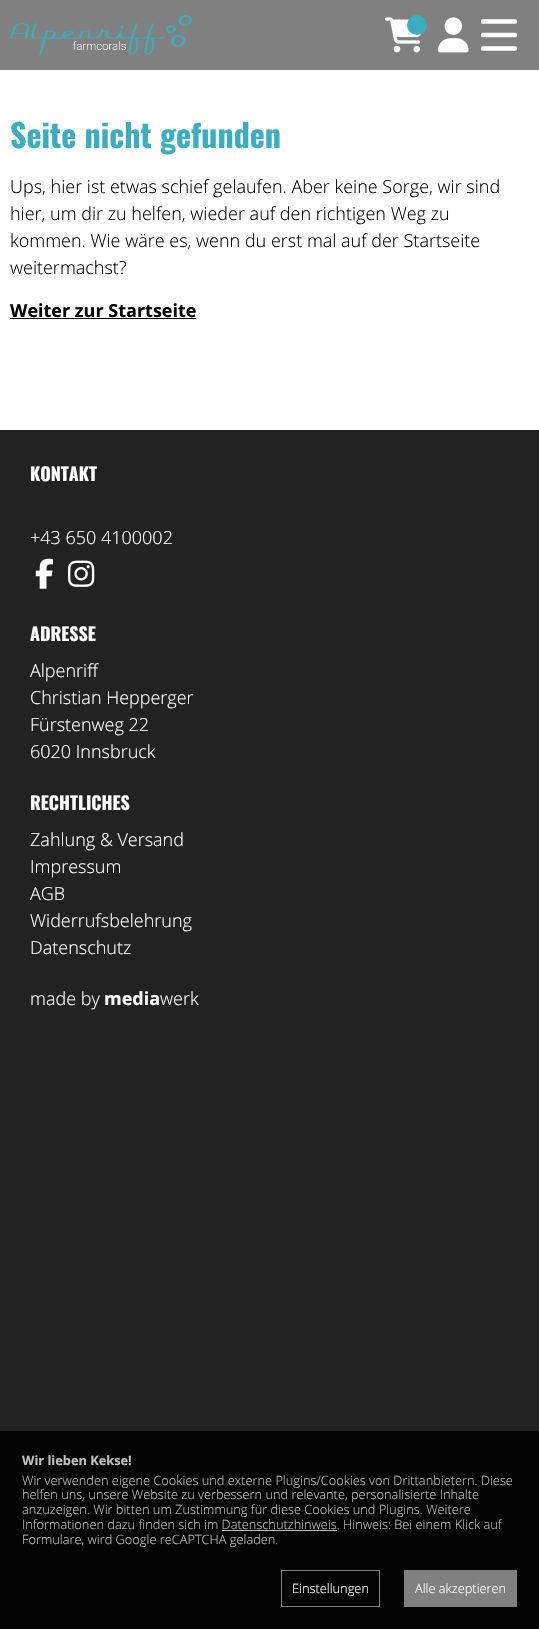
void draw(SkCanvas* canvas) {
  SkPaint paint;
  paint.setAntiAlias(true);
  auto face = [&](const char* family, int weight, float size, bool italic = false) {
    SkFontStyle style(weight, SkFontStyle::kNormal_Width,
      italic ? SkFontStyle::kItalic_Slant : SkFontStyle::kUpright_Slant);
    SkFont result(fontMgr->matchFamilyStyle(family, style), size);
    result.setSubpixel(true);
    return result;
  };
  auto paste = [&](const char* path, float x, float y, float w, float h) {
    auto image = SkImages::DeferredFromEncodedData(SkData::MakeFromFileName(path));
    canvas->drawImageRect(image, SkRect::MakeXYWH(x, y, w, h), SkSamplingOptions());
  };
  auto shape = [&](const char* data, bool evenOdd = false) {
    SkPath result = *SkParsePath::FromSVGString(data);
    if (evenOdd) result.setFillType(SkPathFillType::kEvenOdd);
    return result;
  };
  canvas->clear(0xff222222);
  paint.setColor(0xff808080);
  canvas->drawRect(SkRect::MakeXYWH(0, 0, 539, 70), paint);
  paste("img/1.png", 10, 15, 182, 40);
  paste("img/2.png", 385, 17, 37, 36);
  paint.setColor(0xff3badbf);
  canvas->drawCircle(417, 25, 10, paint);
  paste("img/3.png", 438, 17, 31, 36);
  paint.setStroke(true);
  paint.setStrokeWidth(4.4f);
  paint.setStrokeCap(SkPaint::kRound_Cap);
  paint.setColor(0xffffffff);
  canvas->drawPath(shape("M483 21.5H515M483 35H515M483 48.5H515"), paint);
  paint.setStroke(false);
  canvas->drawRect(SkRect::MakeXYWH(0, 70, 539, 360), paint);
  paint.setColor(0xff000000);
  canvas->drawRect(SkRect::MakeXYWH(10, 318, 186, 1), paint);
  paste("img/4.png", 35, 558, 18, 31);
  paste("img/5.png", 68, 560, 27, 27);
  paint.setColor(0xff030303);
  canvas->drawRect(SkRect::MakeXYWH(0, 1431, 539, 198), paint);
  paint.setColor(0xffc0c0c0);
  canvas->drawRect(SkRect::MakeXYWH(222, 1530, 115, 1), paint);
  paint.setStroke(true);
  paint.setStrokeWidth(1);
  paint.setStrokeCap(SkPaint::kButt_Cap);
  paint.setColor(0xff808080);
  canvas->drawRect(SkRect::MakeXYWH(281.5f, 1570.5f, 98, 36), paint);
  paint.setStroke(false);
  canvas->drawRect(SkRect::MakeXYWH(404, 1570, 113, 37), paint);
  auto f0 = face("Oswald", 700, 32);
  paint.setColor(0xff3badbf);
  canvas->drawString("Seite nicht gefunden", 10, 148, f0, paint);
  auto f1 = face("Open Sans", 300, 18);
  paint.setColor(0xff000000);
  {
    const struct { const char* s; float x, y; } items[] = {
      {"Ups, hier ist etwas schief gelaufen. Aber keine Sorge, wir sind", 10, 193},
      {"hier, um dir zu helfen, wieder auf den richtigen Weg zu", 10, 220},
      {"kommen. Wie wäre es, wenn du erst mal auf der Startseite", 10, 247},
      {"weitermachst?", 10, 274},
    };
    for (auto [s, x, y] : items) {
      canvas->drawString(s, x, y, f1, paint);
    }
  }
  auto f2 = face("Open Sans", 700, 18);
  canvas->drawString("Weiter zur Startseite", 10, 317, f2, paint);
  auto f3 = face("Oswald", 700, 18);
  paint.setColor(0xffffffff);
  canvas->drawString("KONTAKT", 30, 481, f3, paint);
  canvas->drawString("+43 650 4100002", 30, 544, f1, paint);
  canvas->drawString("ADRESSE", 30, 641, f3, paint);
  {
    const struct { const char* s; float x, y; } items[] = {
      {"Alpenriff", 30, 677},
      {"Christian Hepperger", 30, 704},
      {"Fürstenweg 22", 30, 731},
      {"6020 Innsbruck", 30, 758},
    };
    for (auto [s, x, y] : items) {
      canvas->drawString(s, x, y, f1, paint);
    }
  }
  canvas->drawString("RECHTLICHES", 30, 810, f3, paint);
  {
    const struct { const char* s; float x, y; } items[] = {
      {"Zahlung & Versand", 30, 846},
      {"Impressum", 30, 873},
      {"AGB", 30, 900},
      {"Widerrufsbelehrung", 30, 927},
      {"Datenschutz", 30, 954},
      {"made by", 30, 1005},
    };
    for (auto [s, x, y] : items) {
      canvas->drawString(s, x, y, f1, paint);
    }
  }
  canvas->drawString("media", 104, 1005, f2, paint);
  canvas->drawString("werk", 160, 1005, f1, paint);
  auto f4 = face("Open Sans", 700, 12.8f);
  paint.setColor(0xffc0c0c0);
  canvas->drawString("Wir lieben Kekse!", 22, 1465, f4, paint);
  auto f5 = face("Open Sans", 300, 12.8f);
  {
    const struct { const char* s; float x, y; } items[] = {
      {"Wir verwenden eigene Cookies und externe Plugins/Cookies von Drittanbietern. Diese", 22, 1485},
      {"helfen uns, unsere Website zu verbessern und relevante, personalisierte Inhalte", 22, 1499},
      {"anzuzeigen. Wir bitten um Zustimmung für diese Cookies und Plugins. Weitere", 22, 1514},
      {"Informationen dazu finden sich im Datenschutzhinweis. Hinweis: Bei einem Klick auf", 22, 1529},
      {"Formulare, wird Google reCAPTCHA geladen.", 22, 1544},
    };
    for (auto [s, x, y] : items) {
      canvas->drawString(s, x, y, f5, paint);
    }
  }
  paint.setColor(0xffffffff);
  canvas->drawString("Einstellungen", 292, 1593, f5, paint);
  canvas->drawString("Alle akzeptieren", 415, 1593, f5, paint);
}
